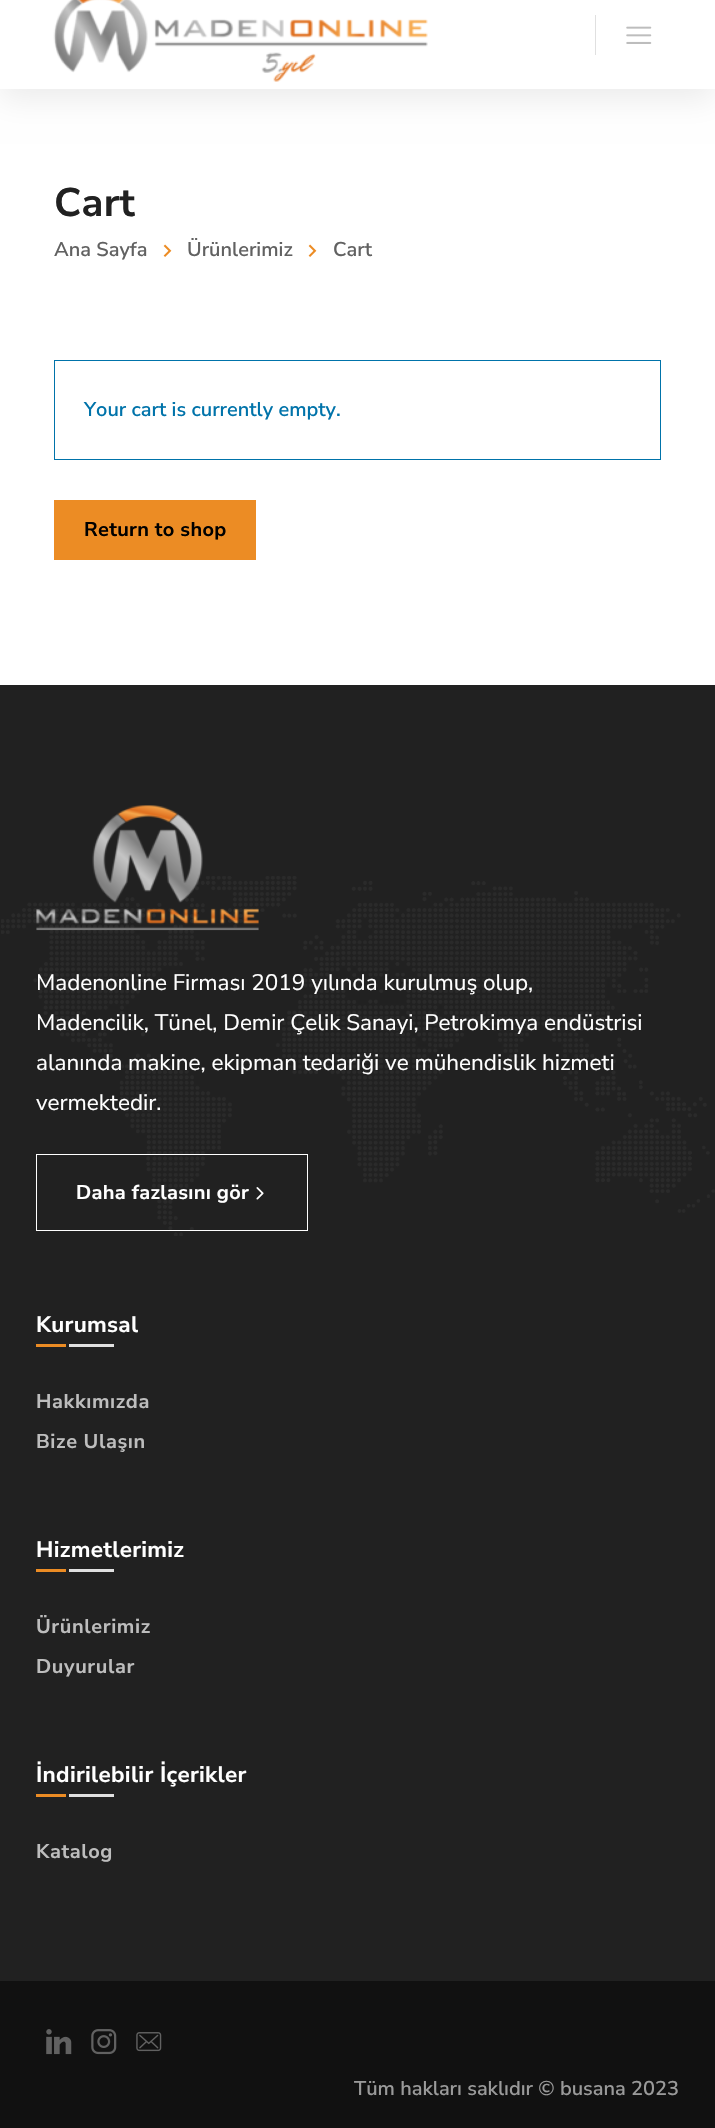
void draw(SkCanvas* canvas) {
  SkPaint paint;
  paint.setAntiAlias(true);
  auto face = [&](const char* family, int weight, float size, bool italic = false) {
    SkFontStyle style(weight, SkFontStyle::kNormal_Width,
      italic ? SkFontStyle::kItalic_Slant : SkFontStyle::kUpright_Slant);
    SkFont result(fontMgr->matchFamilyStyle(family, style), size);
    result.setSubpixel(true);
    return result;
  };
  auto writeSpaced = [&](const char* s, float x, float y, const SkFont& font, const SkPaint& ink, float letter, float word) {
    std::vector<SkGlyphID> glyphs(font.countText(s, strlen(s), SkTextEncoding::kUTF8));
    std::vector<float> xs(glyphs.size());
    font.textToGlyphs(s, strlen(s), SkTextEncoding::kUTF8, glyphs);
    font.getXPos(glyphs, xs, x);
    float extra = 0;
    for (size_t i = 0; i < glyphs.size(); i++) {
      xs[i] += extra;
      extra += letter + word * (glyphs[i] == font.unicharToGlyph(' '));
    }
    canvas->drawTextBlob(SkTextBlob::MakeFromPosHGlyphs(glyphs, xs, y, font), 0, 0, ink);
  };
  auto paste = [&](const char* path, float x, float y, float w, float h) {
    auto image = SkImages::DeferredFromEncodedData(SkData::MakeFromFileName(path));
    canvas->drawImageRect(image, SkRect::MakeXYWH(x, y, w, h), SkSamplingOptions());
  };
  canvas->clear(0xffffffff);
  paint.setColor(0x14000000);
  paint.setMaskFilter(SkMaskFilter::MakeBlur(kNormal_SkBlurStyle, 15));
  canvas->drawRect(SkRect::MakeXYWH(0, -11, 715, 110), paint);
  paint.setMaskFilter(nullptr);
  paint.setColor(0xffffffff);
  canvas->drawRect(SkRect::MakeXYWH(0, 0, 715, 89), paint);
  paste("img/1.png", 53, 0, 375, 82);
  paint.setColor(0xffe0e0e0);
  canvas->drawRect(SkRect::MakeXYWH(595, 15, 1, 40), paint);
  paste("img/2.png", 626, 26, 26, 18);
  paste("img/3.png", 163, 244, 9, 13);
  paste("img/3.png", 308, 244, 9, 13);
  paint.setStroke(true);
  paint.setStrokeWidth(1);
  paint.setColor(0xff0073aa);
  canvas->drawRect(SkRect::MakeXYWH(54.5f, 360.5f, 606, 99), paint);
  paint.setStroke(false);
  paint.setColor(0xffec8c24);
  canvas->drawRect(SkRect::MakeXYWH(54, 500, 202, 60), paint);
  paint.setColor(0xff212121);
  canvas->drawRect(SkRect::MakeXYWH(0, 685, 715, 1296), paint);
  paste("img/4.png", 1, 876, 714, 360);
  paste("img/5.png", 36, 805, 223, 126);
  paint.setStroke(true);
  paint.setColor(0xffffffff);
  canvas->drawRect(SkRect::MakeXYWH(36.5f, 1154.5f, 271, 76), paint);
  paste("img/6.png", 256, 1187, 8, 13);
  paint.setStroke(false);
  {
    const struct { float x, y, w, h; SkColor color; } items[] = {
      {36, 1344, 30, 3, 0xffec8c24},
      {69, 1344, 45, 3, 0xffe0e0e0},
      {36, 1569, 30, 3, 0xffec8c24},
      {69, 1569, 45, 3, 0xffe0e0e0},
      {36, 1794, 30, 3, 0xffec8c24},
      {69, 1794, 45, 3, 0xffe0e0e0},
      {0, 1981, 715, 147, 0xff111111},
    };
    for (auto [x, y, w, h, color] : items) {
      paint.setColor(color);
      canvas->drawRect(SkRect::MakeXYWH(x, y, w, h), paint);
    }
  }
  paste("img/7.png", 46, 2029, 26, 26);
  paste("img/8.png", 91, 2029, 26, 26);
  paste("img/9.png", 136, 2032, 26, 20);
  auto f0 = face("Nunito Sans", 700, 40);
  paint.setColor(0xff212121);
  writeSpaced("Cart", 54, 216, f0, paint, 0.3f, 0);
  auto f1 = face("Nunito Sans", 600, 20);
  paint.setColor(0xff616161);
  {
    const struct { const char* s; float x, y; } items[] = {
      {"Ana Sayfa", 54, 256},
      {"Ürünlerimiz", 187, 256},
      {"Cart", 333, 256},
    };
    for (auto [s, x, y] : items) {
      canvas->drawString(s, x, y, f1, paint);
    }
  }
  paint.setColor(0xff0073aa);
  canvas->drawString("Your cart is currently empty.", 84, 416, f1, paint);
  auto f2 = face("Nunito Sans", 700, 20);
  paint.setColor(0xff000000);
  writeSpaced("Return to shop", 84, 536, f2, paint, 0.3f, 0);
  auto f3 = face("Nunito Sans", 400, 22.5f);
  paint.setColor(0xffffffff);
  {
    const struct { const char* s; float x, y; } items[] = {
      {"Madenonline Firması 2019 yılında kurulmuş olup,", 36, 990},
      {"Madencilik, Tünel, Demir Çelik Sanayi, Petrokimya endüstrisi", 36, 1030},
      {"alanında makine, ekipman tedariği ve mühendislik hizmeti", 36, 1070},
      {"vermektedir.", 36, 1110},
    };
    for (auto [s, x, y] : items) {
      canvas->drawString(s, x, y, f3, paint);
    }
  }
  writeSpaced("Daha fazlasını gör", 76, 1199, f2, paint, 0.3f, 0);
  auto f4 = face("Nunito Sans", 700, 22.5f);
  writeSpaced("Kurumsal", 36, 1332, f4, paint, 0.3f, 0);
  paint.setColor(0xffbdbdbd);
  writeSpaced("Hakkımızda", 36, 1408, f2, paint, 0.6f, 0);
  writeSpaced("Bize Ulaşın", 36, 1448, f2, paint, 0.6f, 0);
  paint.setColor(0xffffffff);
  writeSpaced("Hizmetlerimiz", 36, 1557, f4, paint, 0.3f, 0);
  paint.setColor(0xffbdbdbd);
  writeSpaced("Ürünlerimiz", 36, 1633, f2, paint, 0.6f, 0);
  writeSpaced("Duyurular", 36, 1673, f2, paint, 0.6f, 0);
  paint.setColor(0xffffffff);
  writeSpaced("İndirilebilir İçerikler", 36, 1782, f4, paint, 0.3f, 0);
  paint.setColor(0xffbdbdbd);
  writeSpaced("Katalog", 36, 1858, f2, paint, 0.6f, 0);
  paint.setColor(0xff9a9a9a);
  canvas->drawString("Tüm hakları saklıdır © busana 2023", 354, 2095, f1, paint);
}
